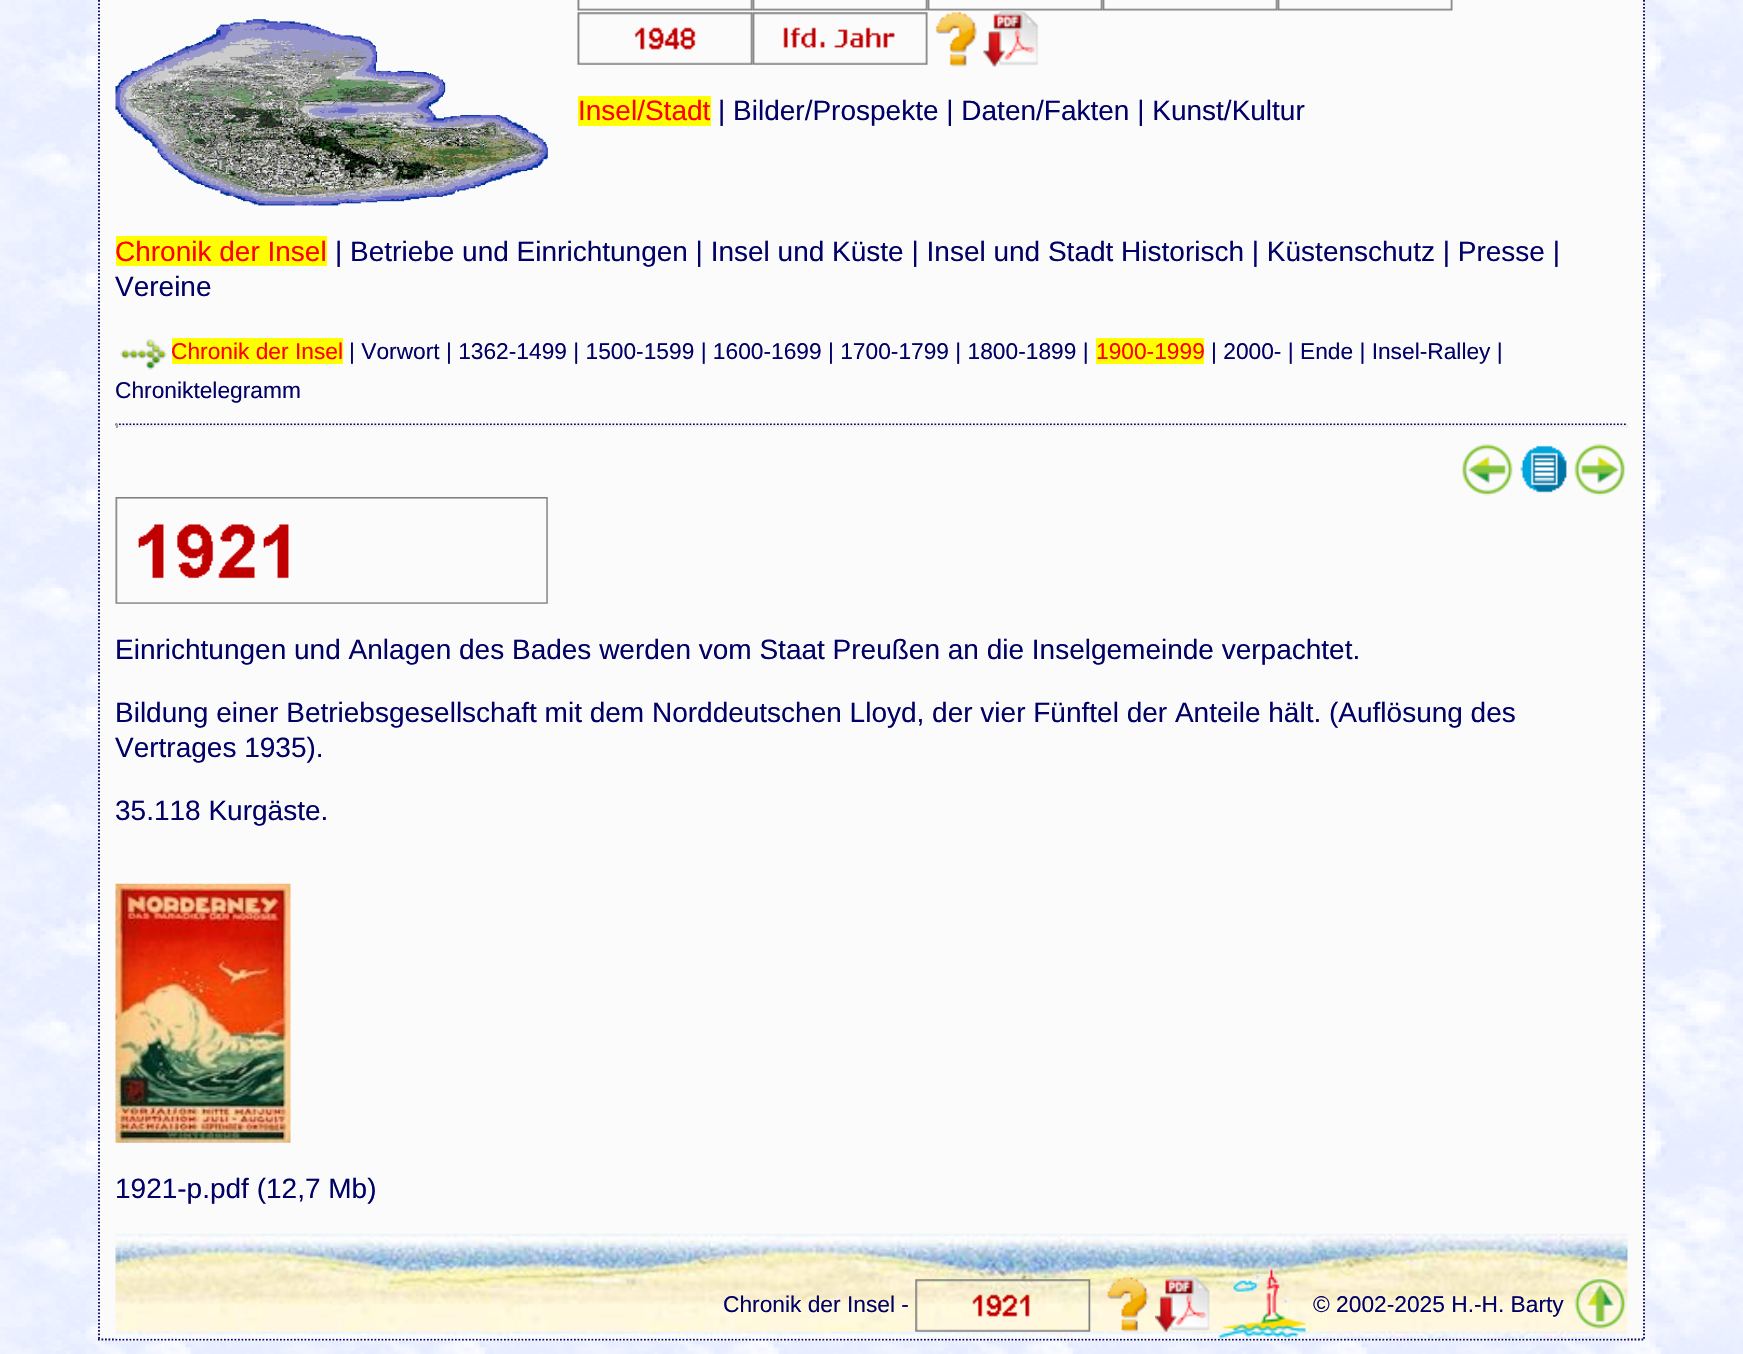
void draw(SkCanvas* canvas) {
  SkPaint paint;
  paint.setAntiAlias(true);
  auto face = [&](const char* family, int weight, float size, bool italic = false) {
    SkFontStyle style(weight, SkFontStyle::kNormal_Width,
      italic ? SkFontStyle::kItalic_Slant : SkFontStyle::kUpright_Slant);
    SkFont result(fontMgr->matchFamilyStyle(family, style), size);
    result.setSubpixel(true);
    return result;
  };
  auto paste = [&](const char* path, float x, float y, float w, float h) {
    auto image = SkImages::DeferredFromEncodedData(SkData::MakeFromFileName(path));
    canvas->drawImageRect(image, SkRect::MakeXYWH(x, y, w, h), SkSamplingOptions());
  };
  auto shape = [&](const char* data, bool evenOdd = false) {
    SkPath result = *SkParsePath::FromSVGString(data);
    if (evenOdd) result.setFillType(SkPathFillType::kEvenOdd);
    return result;
  };
  canvas->clear(0xffffffff);
  paste("img/1.png", 0, 0, 1743, 1354);
  paint.setColor(0xfffbfbfb);
  canvas->drawRect(SkRect::MakeXYWH(98, 0, 1547, 1341), paint);
  paint.setStroke(true);
  paint.setStrokeWidth(1.8f);
  paint.setColor(0xff000066);
  paint.setPathEffect(SkDashPathEffect::Make({{1.75f, 1.75f}}, 0));
  canvas->drawPath(shape("M1644-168V1340.5"), paint);
  paint.setPathEffect(nullptr);
  paint.setPathEffect(SkDashPathEffect::Make({{1.75f, 1.75f}}, 0));
  canvas->drawPath(shape("M98 1339.5H1645"), paint);
  paint.setPathEffect(nullptr);
  paint.setPathEffect(SkDashPathEffect::Make({{1.75f, 1.75f}}, 0));
  canvas->drawPath(shape("M99-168V1340.5"), paint);
  paint.setPathEffect(nullptr);
  paste("img/2.png", 115, 19, 433, 187);
  paste("img/3.png", 577, 0, 176, 11);
  paste("img/4.png", 752, 0, 176, 11);
  paste("img/4.png", 927, 0, 176, 11);
  paste("img/4.png", 1102, 0, 176, 11);
  paste("img/4.png", 1277, 0, 176, 11);
  paste("img/5.png", 577, 12, 176, 53);
  paste("img/6.png", 752, 12, 176, 53);
  paste("img/7.png", 935, 11, 42, 56);
  paste("img/8.png", 983, 10, 56, 57);
  paint.setStroke(false);
  paint.setColor(0xffffff00);
  canvas->drawRect(SkRect::MakeXYWH(578, 96, 133, 30), paint);
  canvas->drawRect(SkRect::MakeXYWH(116, 236, 211, 30), paint);
  paste("img/9.png", 120, 339, 47, 31);
  canvas->drawRect(SkRect::MakeXYWH(172, 338, 171, 26), paint);
  canvas->drawRect(SkRect::MakeXYWH(1096, 338, 108, 26), paint);
  paint.setStroke(true);
  paint.setColor(0xff000066);
  paint.setPathEffect(SkDashPathEffect::Make({{1.75f, 1.75f}}, 0));
  canvas->drawPath(shape("M115.5 424.5H1627.5"), paint);
  paint.setPathEffect(nullptr);
  paint.setStroke(false);
  {
    const struct { float x, y, w, h; SkColor color; } items[] = {
      {1626, 424, 2, 4, 0xffeeeeee},
      {116, 425, 1512, 2, 0xffeeeeee},
      {116, 424, 2, 4, 0xff9f9f9f},
    };
    for (auto [x, y, w, h, color] : items) {
      paint.setColor(color);
      canvas->drawRect(SkRect::MakeXYWH(x, y, w, h), paint);
    }
  }
  paste("img/10.png", 1461, 444, 52, 52);
  paste("img/11.png", 1520, 445, 47, 48);
  paste("img/12.png", 1574, 444, 52, 52);
  paste("img/13.png", 115, 497, 433, 107);
  paste("img/14.png", 115, 883, 176, 260);
  paste("img/15.png", 115, 1233, 1513, 106);
  paste("img/16.png", 915, 1279, 176, 53);
  paste("img/17.png", 1107, 1277, 42, 55);
  paste("img/18.png", 1155, 1275, 55, 57);
  paste("img/19.png", 1218, 1268, 88, 71);
  paste("img/20.png", 1574, 1277, 53, 52);
  auto f0 = face("Liberation Sans", 400, 28);
  paint.setColor(0xffff0000);
  canvas->drawString("Insel/Stadt", 578, 120, f0, paint);
  paint.setColor(0xff000066);
  canvas->drawString("| Bilder/Prospekte | Daten/Fakten | Kunst/Kultur", 718, 120, f0, paint);
  paint.setColor(0xffff0000);
  canvas->drawString("Chronik der Insel", 115, 261, f0, paint);
  paint.setColor(0xff000066);
  canvas->drawString("| Betriebe und Einrichtungen | Insel und Küste | Insel und Stadt Historisch | Küstenschutz | Presse |", 335, 261, f0, paint);
  canvas->drawString("Vereine", 115, 296, f0, paint);
  auto f1 = face("Liberation Sans", 400, 22.75f);
  paint.setColor(0xffff0000);
  canvas->drawString("Chronik der Insel", 171, 359, f1, paint);
  paint.setColor(0xff000066);
  canvas->drawString("| Vorwort | 1362-1499 | 1500-1599 | 1600-1699 | 1700-1799 | 1800-1899 |", 349, 359, f1, paint);
  paint.setColor(0xffff0000);
  canvas->drawString("1900-1999", 1096, 359, f1, paint);
  paint.setColor(0xff000066);
  canvas->drawString("| 2000- | Ende | Insel-Ralley |", 1211, 359, f1, paint);
  canvas->drawString("Chroniktelegramm", 115, 398, f1, paint);
  {
    const struct { const char* s; float x, y; } items[] = {
      {"Einrichtungen und Anlagen des Bades werden vom Staat Preußen an die Inselgemeinde verpachtet.", 115, 659},
      {"Bildung einer Betriebsgesellschaft mit dem Norddeutschen Lloyd, der vier Fünftel der Anteile hält. (Auflösung des", 115, 722},
      {"Vertrages 1935).", 115, 757},
      {"35.118 Kurgäste.", 115, 820},
      {"1921-p.pdf (12,7 Mb)", 115, 1198},
    };
    for (auto [s, x, y] : items) {
      canvas->drawString(s, x, y, f0, paint);
    }
  }
  canvas->drawString("Chronik der Insel -", 723, 1312, f1, paint);
  canvas->drawString("© 2002-2025 H.-H. Barty", 1313, 1312, f1, paint);
}
